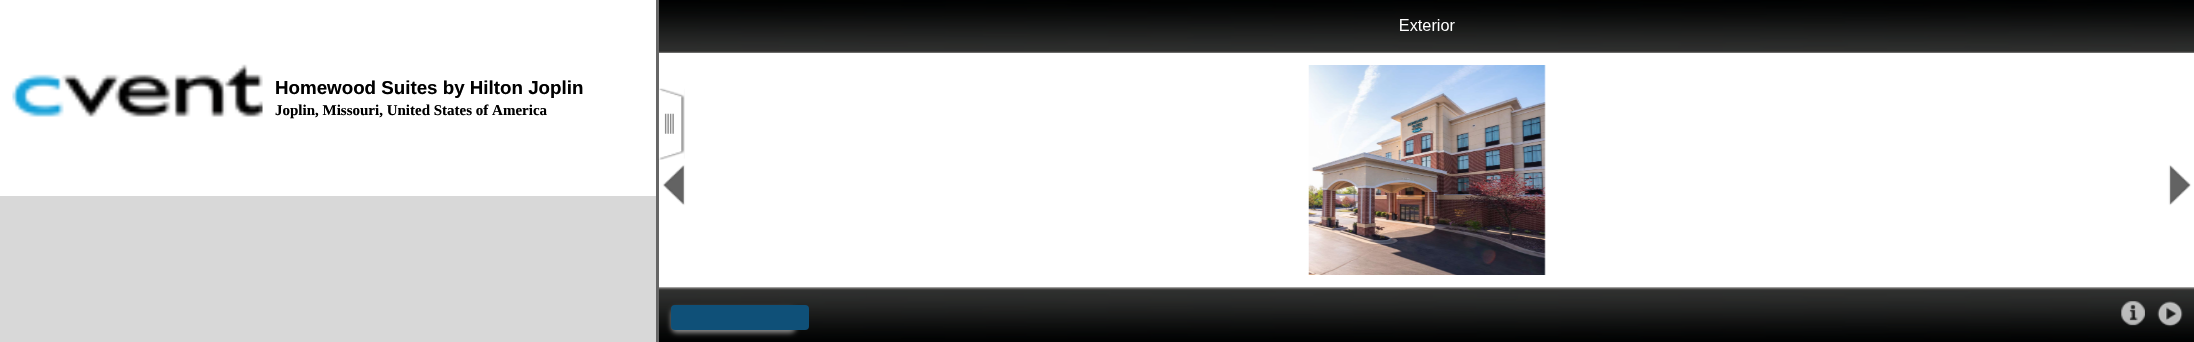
void draw(SkCanvas* canvas) {
  SkPaint paint;
  paint.setAntiAlias(true);
  auto face = [&](const char* family, int weight, float size, bool italic = false) {
    SkFontStyle style(weight, SkFontStyle::kNormal_Width,
      italic ? SkFontStyle::kItalic_Slant : SkFontStyle::kUpright_Slant);
    SkFont result(fontMgr->matchFamilyStyle(family, style), size);
    result.setSubpixel(true);
    return result;
  };
  auto paste = [&](const char* path, float x, float y, float w, float h) {
    auto image = SkImages::DeferredFromEncodedData(SkData::MakeFromFileName(path));
    canvas->drawImageRect(image, SkRect::MakeXYWH(x, y, w, h), SkSamplingOptions());
  };
  canvas->clear(0xff666666);
  paint.setColor(0xffd8d8d8);
  canvas->drawRect(SkRect::MakeXYWH(0, 196, 656, 146), paint);
  paint.setColor(0xffffffff);
  canvas->drawRect(SkRect::MakeXYWH(0, 0, 656, 196), paint);
  paste("img/1.png", 12, 64, 251, 53);
  paste("img/2.png", 659, 0, 1535, 342);
  paste("img/3.png", 658, 88, 27, 72);
  paint.setColor(0xff888888);
  paint.setMaskFilter(SkMaskFilter::MakeBlur(kNormal_SkBlurStyle, 2.5f));
  canvas->drawRoundRect(SkRect::MakeXYWH(671, 308, 125, 25), 6, 6, paint);
  paint.setMaskFilter(nullptr);
  paint.setColor(0xff0f5078);
  canvas->drawRoundRect(SkRect::MakeXYWH(671, 305, 138, 25), 4, 4, paint);
  auto f0 = face("Liberation Sans", 700, 18.75f);
  paint.setColor(0xff000000);
  canvas->drawString("Homewood Suites by Hilton Joplin", 275, 94, f0, paint);
  auto f1 = face("Liberation Serif", 700, 15);
  canvas->drawString("Joplin, Missouri, United States of America", 275, 115, f1, paint);
}
